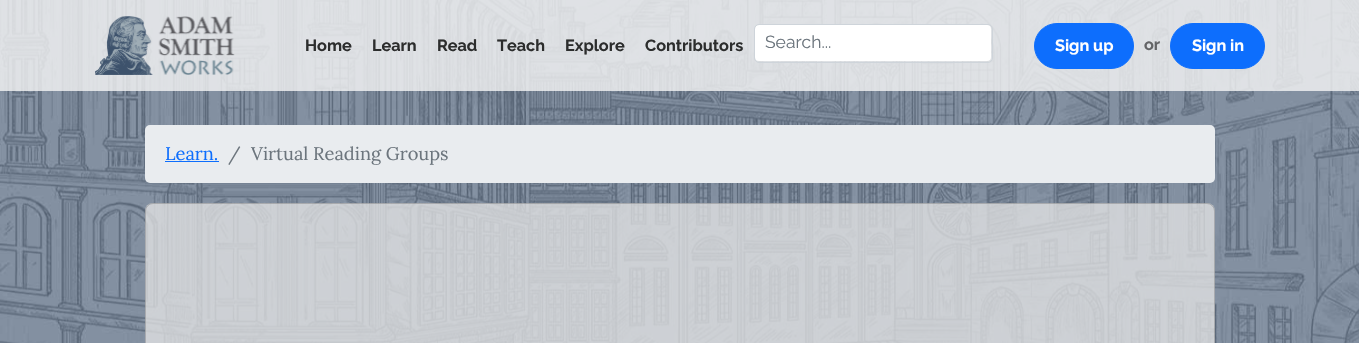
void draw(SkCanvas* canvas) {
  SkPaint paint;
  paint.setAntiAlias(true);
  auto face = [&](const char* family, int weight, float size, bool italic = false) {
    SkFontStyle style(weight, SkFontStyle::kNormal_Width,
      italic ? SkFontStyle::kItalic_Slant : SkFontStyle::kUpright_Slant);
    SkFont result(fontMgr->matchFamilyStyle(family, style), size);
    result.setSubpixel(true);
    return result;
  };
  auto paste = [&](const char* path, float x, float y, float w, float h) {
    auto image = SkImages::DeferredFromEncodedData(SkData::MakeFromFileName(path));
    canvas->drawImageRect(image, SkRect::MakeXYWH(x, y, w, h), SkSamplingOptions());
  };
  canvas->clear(0xffffffff);
  paste("img/2.png", 0, 0, 1359, 343);
  paint.setColor(0xccf5f5f5);
  canvas->drawRect(SkRect::MakeXYWH(0, 0, 1359, 91), paint);
  paste("img/1.png", 95, 16, 140, 59);
  paint.setColor(0xffffffff);
  canvas->drawRoundRect(SkRect::MakeXYWH(755, 25, 236, 36), 4, 4, paint);
  paint.setStroke(true);
  paint.setStrokeWidth(1);
  paint.setColor(0xffced4da);
  canvas->drawRoundRect(SkRect::MakeXYWH(754.5f, 24.5f, 238, 38), 4.5f, 4.5f, paint);
  paint.setStroke(false);
  paint.setColor(0xff0d6efd);
  canvas->drawRoundRect(SkRect::MakeXYWH(1034.5f, 23.5f, 99, 45), 22.5f, 22.5f, paint);
  paint.setStroke(true);
  canvas->drawRoundRect(SkRect::MakeXYWH(1034.5f, 23.5f, 99, 45), 22.5f, 22.5f, paint);
  paint.setStroke(false);
  canvas->drawRoundRect(SkRect::MakeXYWH(1170.5f, 23.5f, 94, 45), 22.5f, 22.5f, paint);
  paint.setStroke(true);
  canvas->drawRoundRect(SkRect::MakeXYWH(1170.5f, 23.5f, 94, 45), 22.5f, 22.5f, paint);
  paint.setStroke(false);
  paint.setColor(0xffe9ecef);
  canvas->drawRoundRect(SkRect::MakeXYWH(145, 125, 1070, 58), 5, 5, paint);
  paint.setColor(0xff0d6efd);
  canvas->drawRect(SkRect::MakeXYWH(165, 161, 54, 1), paint);
  paint.setColor(0xbfe6e6e6);
  canvas->drawRoundRect(SkRect::MakeXYWH(145, 203, 1070, 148), 8, 8, paint);
  paint.setStroke(true);
  paint.setColor(0x2e000000);
  canvas->drawRoundRect(SkRect::MakeXYWH(145.5f, 203.5f, 1069, 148), 7.5f, 7.5f, paint);
  auto f0 = face("Raleway", 700, 16.25f);
  paint.setStroke(false);
  paint.setColor(0xff2c2d2d);
  {
    const struct { const char* s; float x, y; } items[] = {
      {"Home", 305, 51},
      {"Learn", 372, 51},
      {"Read", 437, 51},
      {"Teach", 497, 51},
      {"Explore", 565, 51},
      {"Contributors", 645, 51},
    };
    for (auto [s, x, y] : items) {
      canvas->drawString(s, x, y, f0, paint);
    }
  }
  auto f1 = face("Raleway", 400, 17.5f);
  paint.setColor(0xff6c757d);
  canvas->drawString("Search...", 765, 48, f1, paint);
  paint.setColor(0xffffffff);
  canvas->drawString("Sign up", 1055, 51, f0, paint);
  paint.setColor(0xff636466);
  canvas->drawString("or", 1144, 50, f0, paint);
  paint.setColor(0xffffffff);
  canvas->drawString("Sign in", 1192, 51, f0, paint);
  auto f2 = face("Lora", 400, 18.25f);
  paint.setColor(0xff0d6efd);
  canvas->drawString("Learn.", 165, 160, f2, paint);
  paint.setColor(0xff6c757d);
  canvas->drawString("/", 228, 160, f2, paint);
  canvas->drawString("Virtual Reading Groups", 251, 160, f2, paint);
}
